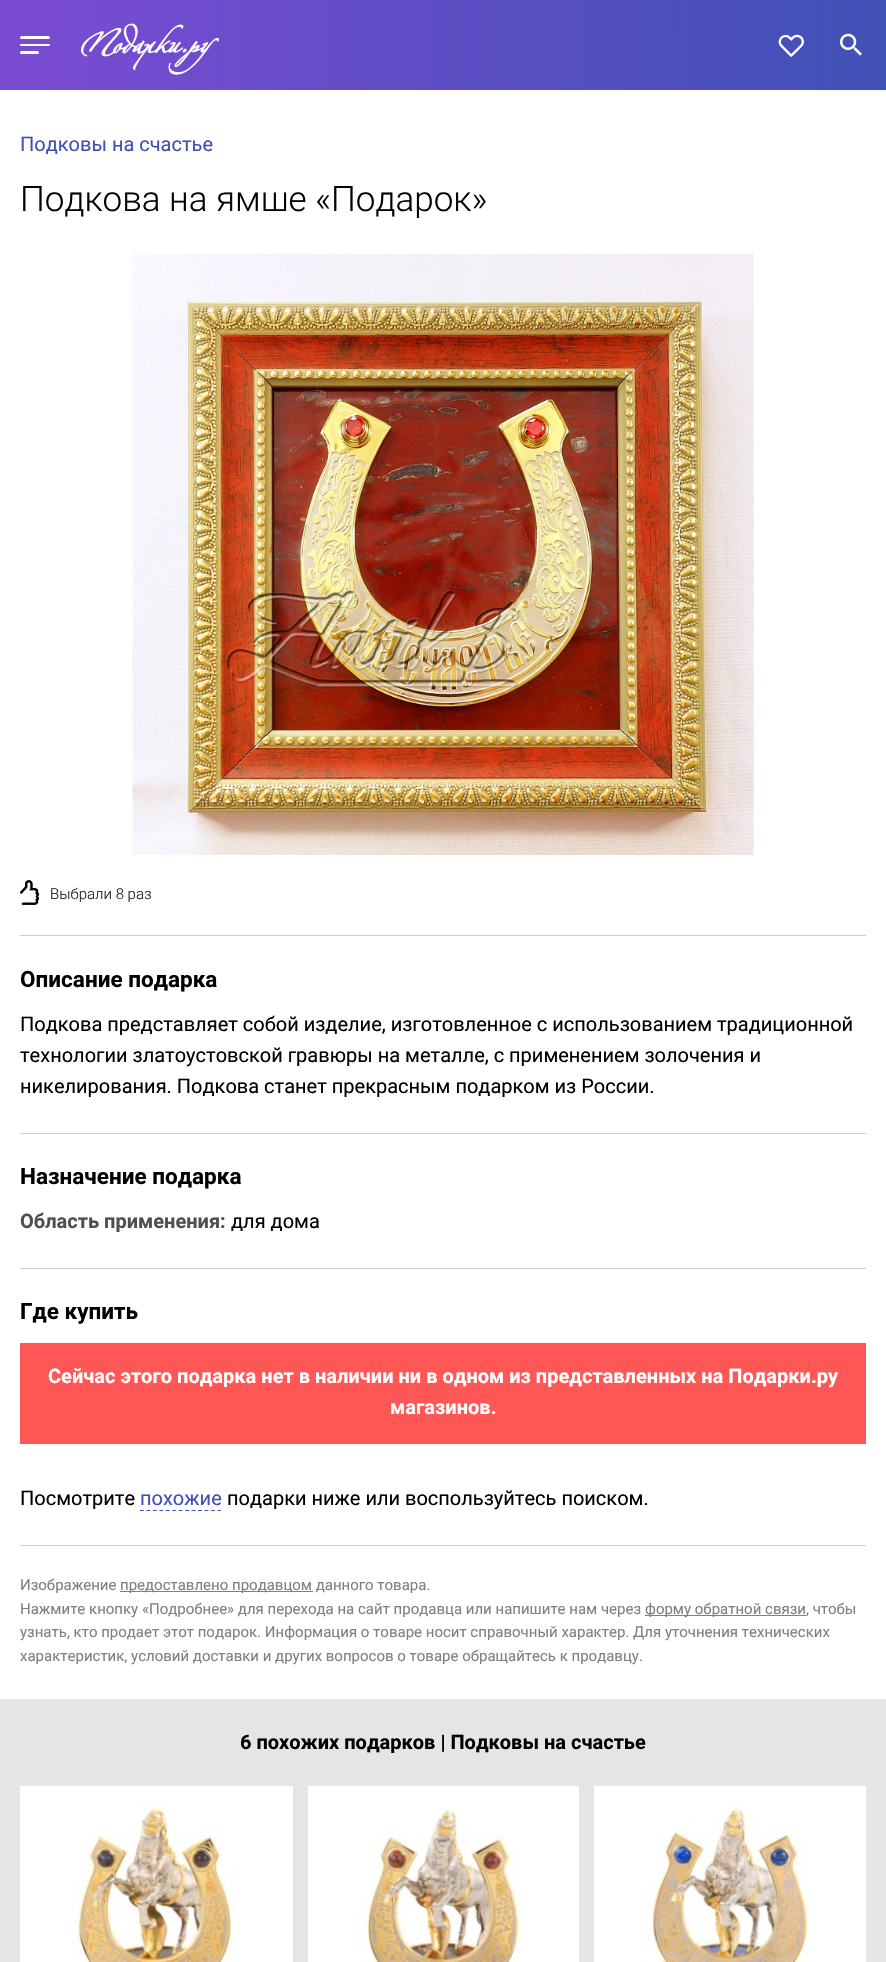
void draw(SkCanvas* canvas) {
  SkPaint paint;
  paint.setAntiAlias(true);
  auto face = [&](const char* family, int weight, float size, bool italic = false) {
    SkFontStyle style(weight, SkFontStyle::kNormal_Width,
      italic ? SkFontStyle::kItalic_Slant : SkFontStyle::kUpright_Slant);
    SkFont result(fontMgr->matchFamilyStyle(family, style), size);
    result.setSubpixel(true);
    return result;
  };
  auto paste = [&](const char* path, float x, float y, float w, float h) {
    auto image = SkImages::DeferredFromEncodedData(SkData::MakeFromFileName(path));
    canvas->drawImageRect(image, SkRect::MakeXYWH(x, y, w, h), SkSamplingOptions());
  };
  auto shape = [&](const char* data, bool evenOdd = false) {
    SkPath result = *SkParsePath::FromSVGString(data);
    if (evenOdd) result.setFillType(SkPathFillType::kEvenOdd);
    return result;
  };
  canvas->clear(0xffffffff);
  {
    const SkColor colors[] = {0xff7c4bd4, 0xff3f51b5};
    const float stops[] = {0, 1};
    SkMatrix m = SkMatrix::Translate(0, 0).preScale(901, 1843);
    paint.setShader(SkGradientShader::MakeRadial({0, 0}, 1, colors, stops, 2, SkTileMode::kClamp, 0, &m));
    paint.setAlpha(255);
  }
  canvas->drawRect(SkRect::MakeXYWH(0, 0, 886, 90), paint);
  paint.setShader(nullptr);
  paint.setColor(0xffffffff);
  canvas->drawRoundRect(SkRect::MakeXYWH(20, 36, 30, 3), 1.5f, 1.5f, paint);
  canvas->drawRoundRect(SkRect::MakeXYWH(20, 44, 30, 2), 1, 1, paint);
  canvas->drawRoundRect(SkRect::MakeXYWH(20, 51, 19, 3), 1.5f, 1.5f, paint);
  paste("img/1.png", 81, 23, 138, 52);
  paste("img/2.png", 778, 34, 26, 23);
  paste("img/3.png", 840, 33, 22, 23);
  paste("img/4.png", 132, 253, 622, 602);
  paste("img/5.png", 20, 880, 19, 25);
  {
    const struct { float x, y, w, h; SkColor color; } items[] = {
      {20, 935, 846, 1, 0xffcccccc},
      {20, 1133, 846, 1, 0xffcccccc},
      {20, 1268, 846, 1, 0xffcccccc},
      {20, 1343, 846, 101, 0xffff5656},
    };
    for (auto [x, y, w, h, color] : items) {
      paint.setColor(color);
      canvas->drawRect(SkRect::MakeXYWH(x, y, w, h), paint);
    }
  }
  paint.setStroke(true);
  paint.setStrokeWidth(1.2f);
  paint.setColor(0xff3f51b5);
  paint.setPathEffect(SkDashPathEffect::Make({{3.75f, 2.71f}}, 0));
  canvas->drawPath(shape("M140 1510.5H221"), paint);
  paint.setPathEffect(nullptr);
  paint.setStroke(false);
  {
    const struct { float x, y, w, h; SkColor color; } items[] = {
      {20, 1545, 846, 1, 0xffcccccc},
      {120, 1591, 193, 1, 0xff808080},
      {645, 1615, 161, 1, 0xff808080},
      {0, 1699, 886, 263, 0xffe5e5e5},
      {20, 1786, 273, 176, 0xffffffff},
    };
    for (auto [x, y, w, h, color] : items) {
      paint.setColor(color);
      canvas->drawRect(SkRect::MakeXYWH(x, y, w, h), paint);
    }
  }
  paste("img/6.png", 71, 1801, 164, 161);
  canvas->drawRect(SkRect::MakeXYWH(308, 1786, 271, 176), paint);
  paste("img/7.png", 356, 1802, 165, 160);
  canvas->drawRect(SkRect::MakeXYWH(594, 1786, 272, 176), paint);
  paste("img/8.png", 642, 1802, 167, 160);
  auto f0 = face("Roboto", 400, 20);
  paint.setColor(0xff3f51b5);
  canvas->drawString("Подковы на счастье", 20, 151, f0, paint);
  auto f1 = face("Roboto", 300, 35);
  paint.setColor(0xff000000);
  canvas->drawString("Подкова на ямше «Подарок»", 20, 211, f1, paint);
  auto f2 = face("Roboto", 300, 15);
  paint.setColor(0xff191919);
  canvas->drawString("Выбрали 8 раз", 50, 899, f2, paint);
  auto f3 = face("Roboto", 700, 22.5f);
  paint.setColor(0xff000000);
  canvas->drawString("Описание подарка", 20, 987, f3, paint);
  {
    const struct { const char* s; float x, y; } items[] = {
      {"Подкова представляет собой изделие, изготовленное с использованием традиционной", 20, 1031},
      {"технологии златоустовской гравюры на металле, с применением золочения и", 20, 1062},
      {"никелирования. Подкова станет прекрасным подарком из России.", 20, 1093},
    };
    for (auto [s, x, y] : items) {
      canvas->drawString(s, x, y, f0, paint);
    }
  }
  canvas->drawString("Назначение подарка", 20, 1184, f3, paint);
  auto f4 = face("Roboto", 700, 20);
  paint.setColor(0xff4f4f4f);
  canvas->drawString("Область применения:", 20, 1228, f4, paint);
  paint.setColor(0xff000000);
  canvas->drawString("для дома", 231, 1228, f0, paint);
  canvas->drawString("Где купить", 20, 1319, f3, paint);
  paint.setColor(0xffffffff);
  canvas->drawString("Сейчас этого подарка нет в наличии ни в одном из представленных на Подарки.ру", 48, 1383, f4, paint);
  canvas->drawString("магазинов.", 390, 1414, f4, paint);
  paint.setColor(0xff000000);
  canvas->drawString("Посмотрите", 20, 1505, f0, paint);
  paint.setColor(0xff3f51b5);
  canvas->drawString("похожие", 140, 1505, f0, paint);
  paint.setColor(0xff000000);
  canvas->drawString("подарки ниже или воспользуйтесь поиском.", 227, 1505, f0, paint);
  auto f5 = face("Roboto", 400, 15);
  paint.setColor(0xff808080);
  {
    const struct { const char* s; float x, y; } items[] = {
      {"Изображение", 20, 1590},
      {"предоставлено продавцом данного товара.", 120, 1590},
      {"Нажмите кнопку «Подробнее» для перехода на сайт продавца или напишите нам через", 20, 1614},
      {"форму обратной связи, чтобы", 645, 1614},
      {"узнать, кто продает этот подарок. Информация о товаре носит справочный характер. Для уточнения технических", 20, 1637},
      {"характеристик, условий доставки и других вопросов о товаре обращайтесь к продавцу.", 20, 1661},
    };
    for (auto [s, x, y] : items) {
      canvas->drawString(s, x, y, f5, paint);
    }
  }
  paint.setColor(0xff000000);
  canvas->drawString("6 похожих подарков | Подковы на счастье", 240, 1749, f4, paint);
}
